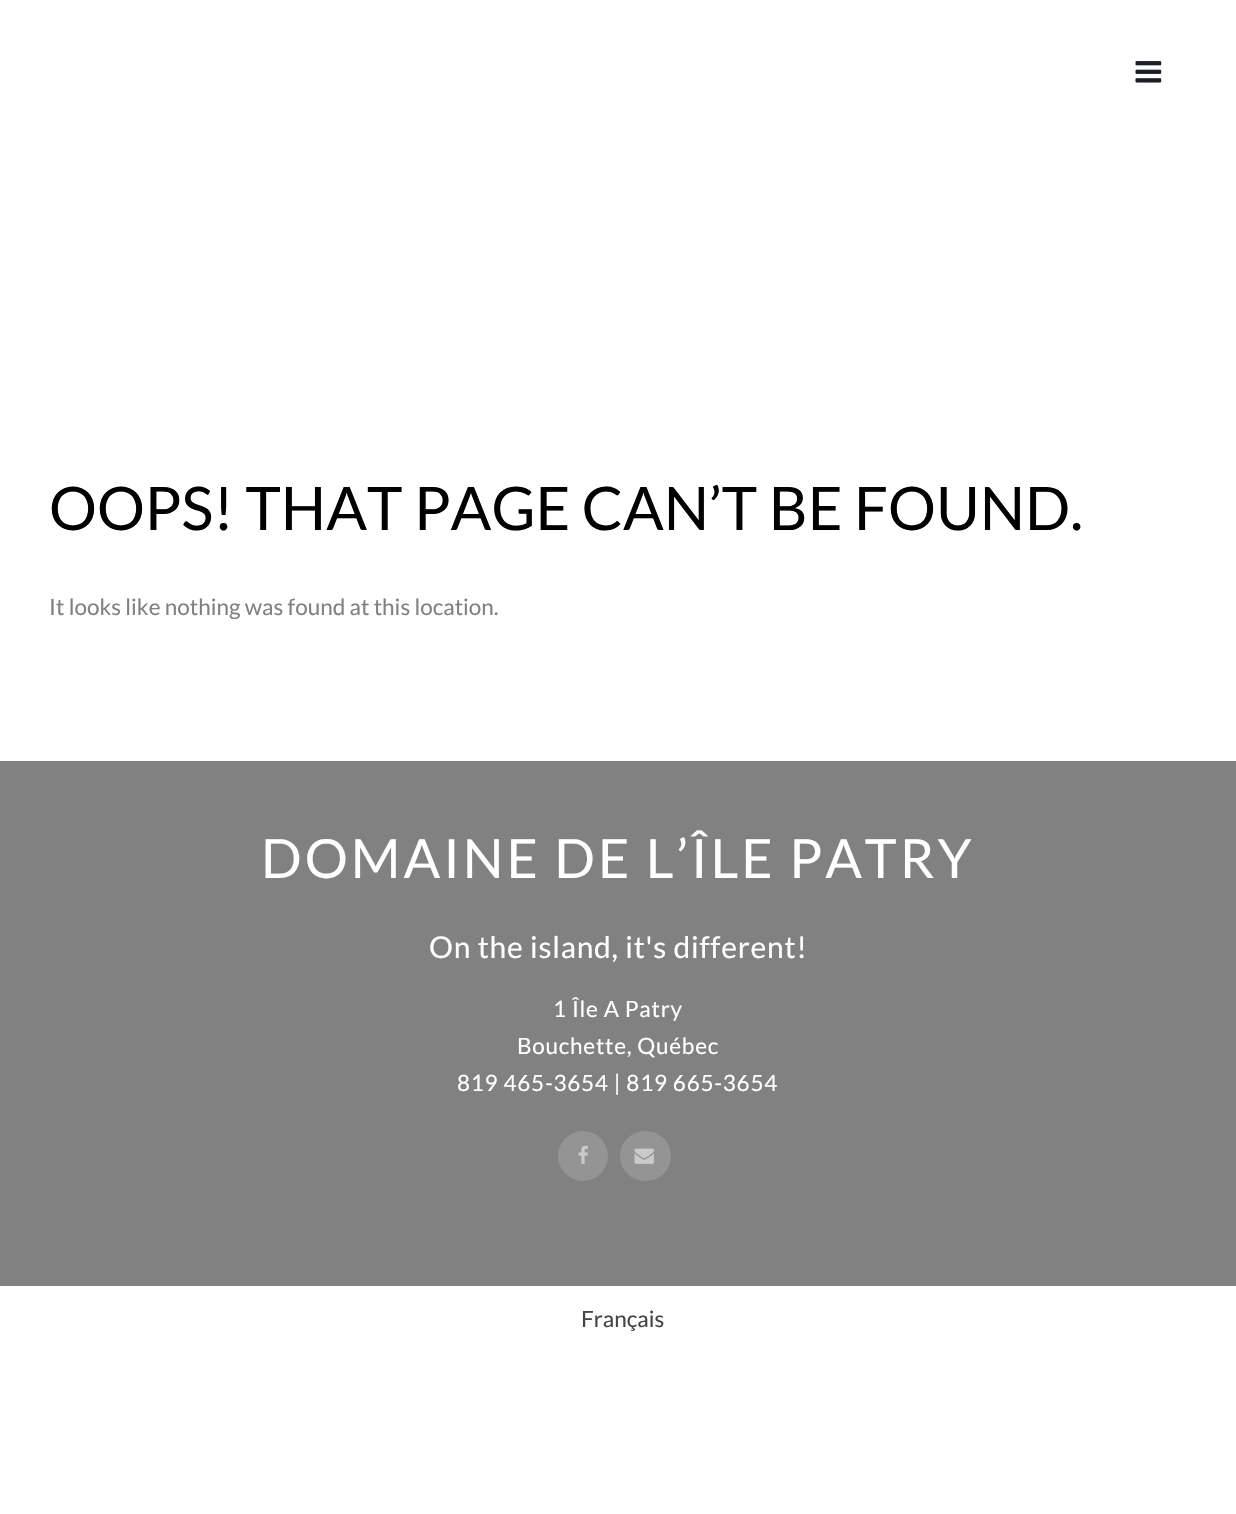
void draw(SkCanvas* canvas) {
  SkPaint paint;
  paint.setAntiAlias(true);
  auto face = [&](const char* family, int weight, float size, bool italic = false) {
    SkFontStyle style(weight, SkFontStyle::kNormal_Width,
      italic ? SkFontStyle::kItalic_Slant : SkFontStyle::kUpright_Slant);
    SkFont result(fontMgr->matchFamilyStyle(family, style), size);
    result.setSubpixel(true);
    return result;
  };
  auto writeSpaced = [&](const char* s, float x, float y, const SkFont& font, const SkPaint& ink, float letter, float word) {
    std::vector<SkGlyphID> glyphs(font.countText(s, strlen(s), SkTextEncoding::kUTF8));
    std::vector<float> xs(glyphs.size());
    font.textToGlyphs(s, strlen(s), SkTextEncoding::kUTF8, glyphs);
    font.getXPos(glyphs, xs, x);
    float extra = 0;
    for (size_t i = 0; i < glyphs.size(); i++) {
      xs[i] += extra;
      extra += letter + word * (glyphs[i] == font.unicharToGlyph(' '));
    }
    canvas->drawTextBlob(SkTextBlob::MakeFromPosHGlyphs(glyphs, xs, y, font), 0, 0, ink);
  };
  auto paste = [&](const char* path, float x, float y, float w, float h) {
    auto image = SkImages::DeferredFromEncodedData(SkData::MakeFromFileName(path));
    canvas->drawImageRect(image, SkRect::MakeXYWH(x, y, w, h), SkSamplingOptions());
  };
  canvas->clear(0xffffffff);
  paste("img/1.png", 1135, 61, 27, 22);
  paint.setColor(0xff818181);
  canvas->drawRect(SkRect::MakeXYWH(0, 761, 1236, 525), paint);
  paint.setColor(0xff949494);
  canvas->drawCircle(583, 1156, 25, paint);
  paste("img/2.png", 578, 1145, 10, 19);
  canvas->drawRoundRect(SkRect::MakeXYWH(620, 1131, 51, 50), 25, 25, paint);
  paste("img/3.png", 634, 1148, 20, 16);
  auto f0 = face("Lato", 400, 60);
  paint.setColor(0xff000000);
  canvas->drawString("OOPS! THAT PAGE CAN’T BE FOUND.", 49, 530, f0, paint);
  auto f1 = face("Lato", 400, 22.5f);
  paint.setColor(0xff7f8186);
  canvas->drawString("It looks like nothing was found at this location.", 49, 615, f1, paint);
  auto f2 = face("Lato", 400, 54);
  paint.setColor(0xffffffff);
  writeSpaced("DOMAINE DE L’ÎLE PATRY", 261, 878, f2, paint, 3, 0);
  auto f3 = face("Lato", 400, 30);
  writeSpaced("On the island, it's different!", 429, 958, f3, paint, 0.75f, 0);
  {
    const struct { const char* s; float x, y; } items[] = {
      {"1 Île A Patry", 553, 1017},
      {"Bouchette, Québec", 517, 1054},
      {"819 465-3654 | 819 665-3654", 457, 1091},
    };
    for (auto [s, x, y] : items) {
      writeSpaced(s, x, y, f1, paint, 0.75f, 0);
    }
  }
  paint.setColor(0xff444444);
  canvas->drawString("Français", 581, 1327, f1, paint);
}
